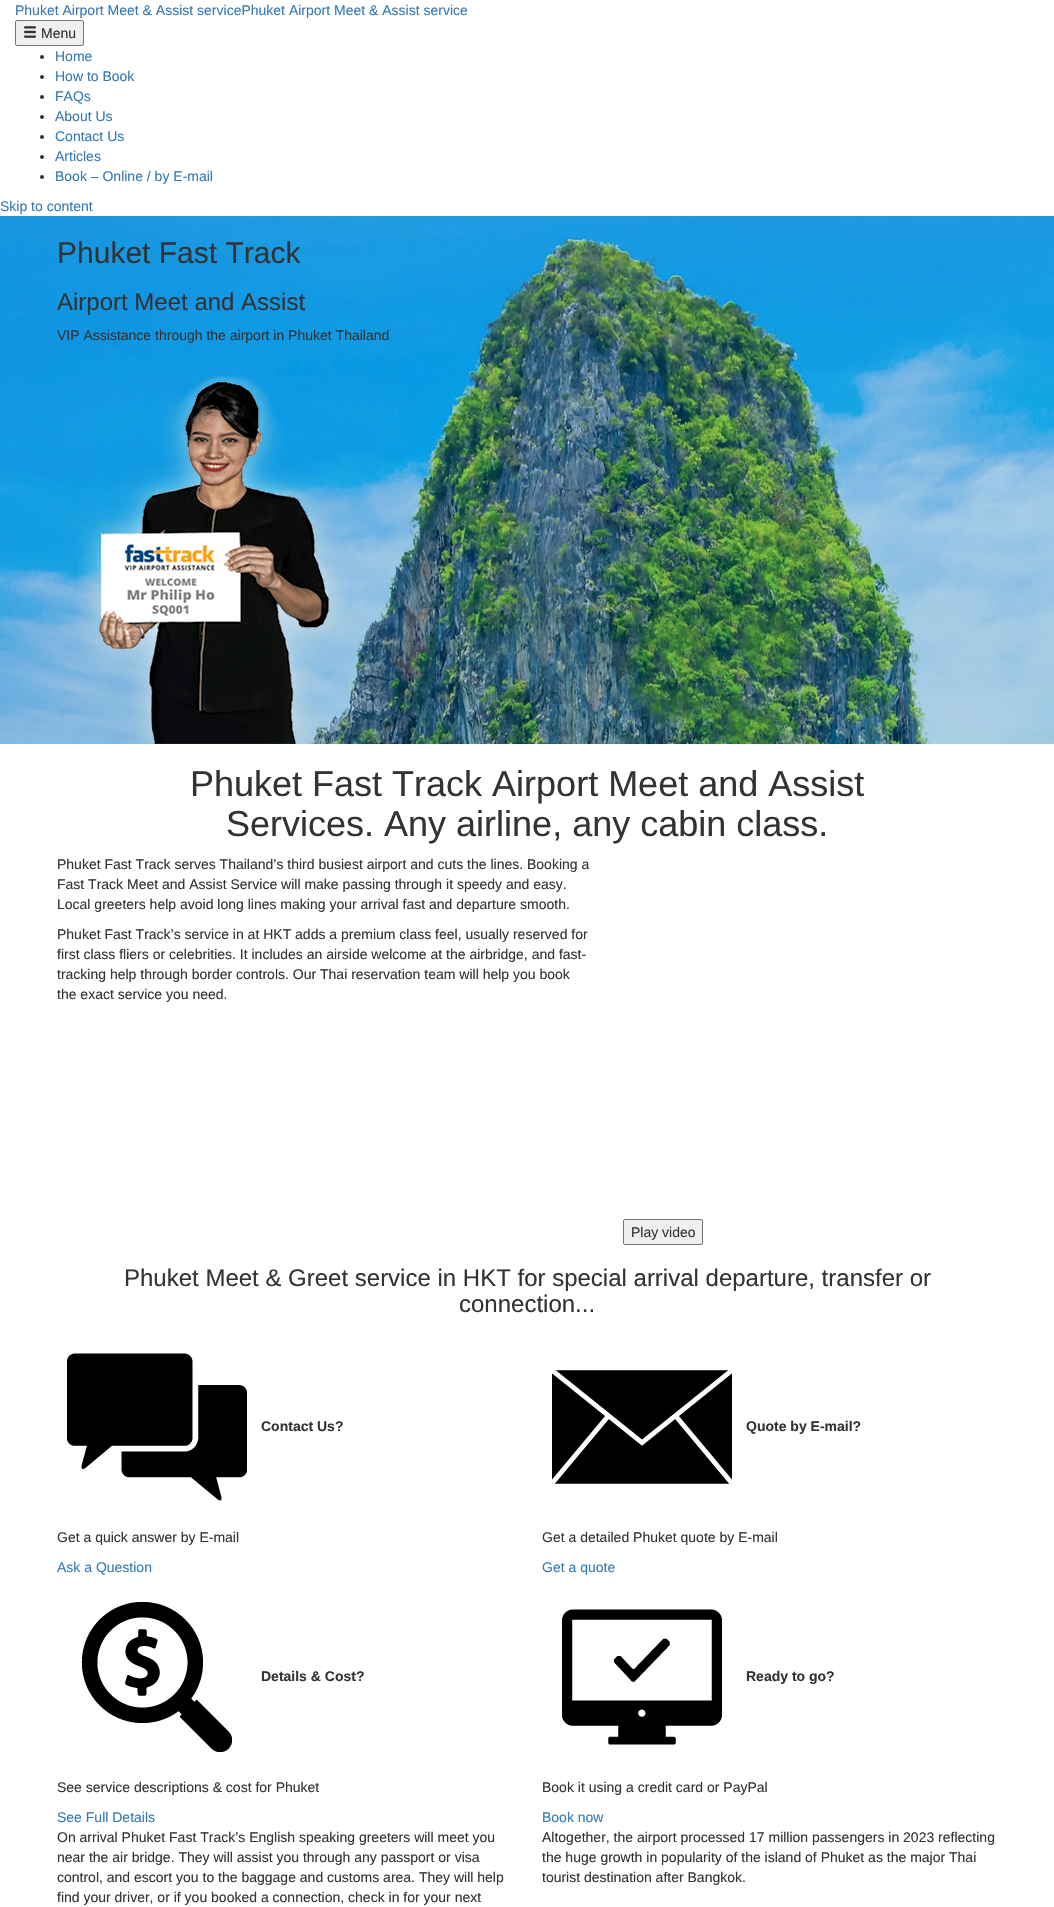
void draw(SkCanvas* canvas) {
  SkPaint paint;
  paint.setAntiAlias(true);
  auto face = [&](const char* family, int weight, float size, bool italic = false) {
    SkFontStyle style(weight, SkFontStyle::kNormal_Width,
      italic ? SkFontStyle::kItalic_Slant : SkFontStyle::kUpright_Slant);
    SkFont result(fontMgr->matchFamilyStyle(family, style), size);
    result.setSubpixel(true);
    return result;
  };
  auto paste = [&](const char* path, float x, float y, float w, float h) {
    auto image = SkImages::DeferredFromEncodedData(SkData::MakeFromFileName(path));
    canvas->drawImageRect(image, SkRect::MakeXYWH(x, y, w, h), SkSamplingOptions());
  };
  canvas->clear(0xffffffff);
  paint.setColor(0xffefefef);
  canvas->drawRoundRect(SkRect::MakeXYWH(15.5f, 20.5f, 68, 25), 1.5f, 1.5f, paint);
  paint.setStroke(true);
  paint.setStrokeWidth(1);
  paint.setColor(0xff767676);
  canvas->drawRoundRect(SkRect::MakeXYWH(15.5f, 20.5f, 68, 25), 1.5f, 1.5f, paint);
  paste("img/1.png", 24, 26, 12, 12);
  paint.setStroke(false);
  paint.setColor(0xff333333);
  canvas->drawCircle(42, 57, 2, paint);
  canvas->drawCircle(42, 77, 2, paint);
  canvas->drawCircle(42, 97, 2, paint);
  canvas->drawCircle(42, 117, 2, paint);
  canvas->drawCircle(42, 137, 2, paint);
  canvas->drawCircle(42, 157, 2, paint);
  canvas->drawCircle(42, 177, 2, paint);
  paste("img/2.png", 0, 216, 1054, 528);
  paste("img/3.png", 78, 375, 270, 369);
  paint.setColor(0xffefefef);
  canvas->drawRoundRect(SkRect::MakeXYWH(623.5f, 1219.5f, 79, 25), 1.5f, 1.5f, paint);
  paint.setStroke(true);
  paint.setColor(0xff767676);
  canvas->drawRoundRect(SkRect::MakeXYWH(623.5f, 1219.5f, 79, 25), 1.5f, 1.5f, paint);
  paste("img/4.png", 67, 1353, 180, 148);
  paste("img/5.png", 552, 1370, 180, 114);
  paste("img/6.png", 81, 1602, 151, 150);
  paste("img/7.png", 562, 1609, 160, 136);
  auto f0 = face("Liberation Sans", 400, 14);
  paint.setStroke(false);
  paint.setColor(0xff337ab7);
  canvas->drawString("Phuket Airport Meet & Assist servicePhuket Airport Meet & Assist service", 15, 15, f0, paint);
  paint.setColor(0xff333333);
  canvas->drawString("Menu", 41, 38, f0, paint);
  paint.setColor(0xff337ab7);
  {
    const struct { const char* s; float x, y; } items[] = {
      {"Home", 55, 61},
      {"How to Book", 55, 81},
      {"FAQs", 55, 101},
      {"About Us", 55, 121},
      {"Contact Us", 55, 141},
      {"Articles", 55, 161},
      {"Book – Online / by E-mail", 55, 181},
      {"Skip to content", 0, 211},
    };
    for (auto [s, x, y] : items) {
      canvas->drawString(s, x, y, f0, paint);
    }
  }
  auto f1 = face("Liberation Sans", 400, 30);
  paint.setColor(0xff333333);
  canvas->drawString("Phuket Fast Track", 57, 263, f1, paint);
  auto f2 = face("Liberation Sans", 400, 24);
  canvas->drawString("Airport Meet and Assist", 57, 310, f2, paint);
  canvas->drawString("VIP Assistance through the airport in Phuket Thailand", 57, 340, f0, paint);
  auto f3 = face("Liberation Sans", 400, 36);
  canvas->drawString("Phuket Fast Track Airport Meet and Assist", 190, 796, f3, paint);
  canvas->drawString("Services. Any airline, any cabin class.", 226, 836, f3, paint);
  {
    const struct { const char* s; float x, y; } items[] = {
      {"Phuket Fast Track serves Thailand’s third busiest airport and cuts the lines. Booking a", 57, 869},
      {"Fast Track Meet and Assist Service will make passing through it speedy and easy.", 57, 889},
      {"Local greeters help avoid long lines making your arrival fast and departure smooth.", 57, 909},
      {"Phuket Fast Track’s service in at HKT adds a premium class feel, usually reserved for", 57, 939},
      {"first class fliers or celebrities. It includes an airside welcome at the airbridge, and fast-", 57, 959},
      {"tracking help through border controls. Our Thai reservation team will help you book", 57, 979},
      {"the exact service you need.", 57, 999},
      {"Play video", 631, 1237},
    };
    for (auto [s, x, y] : items) {
      canvas->drawString(s, x, y, f0, paint);
    }
  }
  canvas->drawString("Phuket Meet & Greet service in HKT for special arrival departure, transfer or", 124, 1286, f2, paint);
  canvas->drawString("connection...", 459, 1312, f2, paint);
  auto f4 = face("Liberation Sans", 700, 14);
  canvas->drawString("Contact Us?", 261, 1431, f4, paint);
  canvas->drawString("Get a quick answer by E-mail", 57, 1542, f0, paint);
  paint.setColor(0xff337ab7);
  canvas->drawString("Ask a Question", 57, 1572, f0, paint);
  paint.setColor(0xff333333);
  canvas->drawString("Quote by E-mail?", 746, 1431, f4, paint);
  canvas->drawString("Get a detailed Phuket quote by E-mail", 542, 1542, f0, paint);
  paint.setColor(0xff337ab7);
  canvas->drawString("Get a quote", 542, 1572, f0, paint);
  paint.setColor(0xff333333);
  canvas->drawString("Details & Cost?", 261, 1681, f4, paint);
  canvas->drawString("See service descriptions & cost for Phuket", 57, 1792, f0, paint);
  paint.setColor(0xff337ab7);
  canvas->drawString("See Full Details", 57, 1822, f0, paint);
  paint.setColor(0xff333333);
  canvas->drawString("Ready to go?", 746, 1681, f4, paint);
  canvas->drawString("Book it using a credit card or PayPal", 542, 1792, f0, paint);
  paint.setColor(0xff337ab7);
  canvas->drawString("Book now", 542, 1822, f0, paint);
  paint.setColor(0xff333333);
  {
    const struct { const char* s; float x, y; } items[] = {
      {"On arrival Phuket Fast Track’s English speaking greeters will meet you", 57, 1842},
      {"near the air bridge. They will assist you through any passport or visa", 57, 1862},
      {"control, and escort you to the baggage and customs area. They will help", 57, 1882},
      {"find your driver, or if you booked a connection, check in for your next", 57, 1902},
      {"Altogether, the airport processed 17 million passengers in 2023 reflecting", 542, 1842},
      {"the huge growth in popularity of the island of Phuket as the major Thai", 542, 1862},
      {"tourist destination after Bangkok.", 542, 1882},
    };
    for (auto [s, x, y] : items) {
      canvas->drawString(s, x, y, f0, paint);
    }
  }
}
